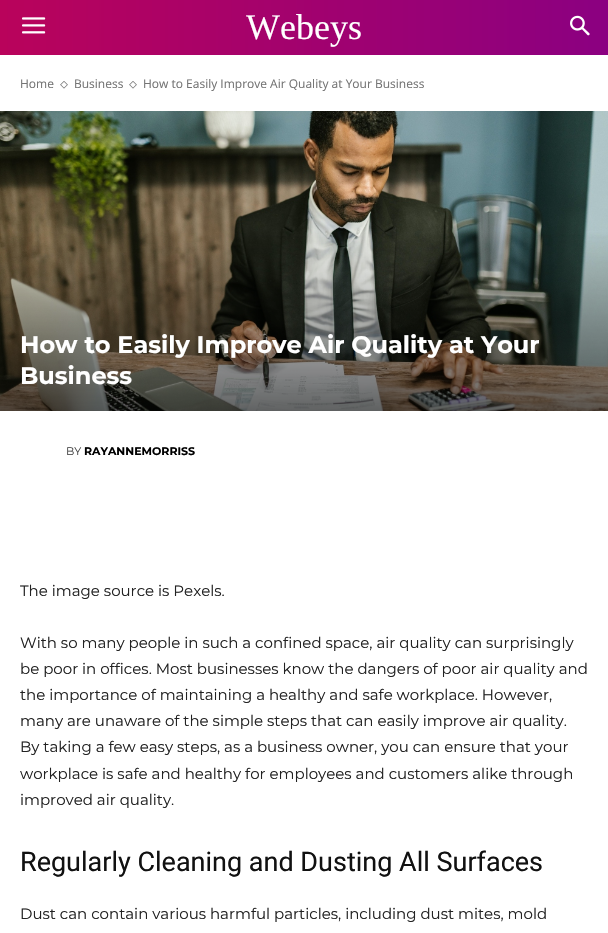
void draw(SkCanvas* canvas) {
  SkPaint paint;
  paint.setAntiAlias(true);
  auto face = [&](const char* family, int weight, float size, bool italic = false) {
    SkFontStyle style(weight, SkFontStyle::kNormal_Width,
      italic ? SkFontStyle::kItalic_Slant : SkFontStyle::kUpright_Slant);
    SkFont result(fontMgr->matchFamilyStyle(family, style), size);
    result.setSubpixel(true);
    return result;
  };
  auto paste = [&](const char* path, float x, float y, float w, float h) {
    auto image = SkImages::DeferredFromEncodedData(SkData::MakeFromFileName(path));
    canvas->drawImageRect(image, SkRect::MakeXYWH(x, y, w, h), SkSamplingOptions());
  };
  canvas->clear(0xffffffff);
  {
    const SkColor colors[] = {0xffb9035b, 0xff8b0081};
    const float stops[] = {0, 1};
    const SkPoint ends[] = {{0, 28}, {608, 27}};
    paint.setShader(SkGradientShader::MakeLinear(ends, colors, stops, 2, SkTileMode::kClamp));
    paint.setAlpha(255);
  }
  canvas->drawRect(SkRect::MakeXYWH(0, 0, 608, 55), paint);
  paste("img/1.png", 22, 17, 24, 17);
  paste("img/2.png", 570, 15, 20, 21);
  paste("img/3.png", 60, 81, 8, 8);
  paste("img/3.png", 129, 81, 8, 8);
  paste("img/4.png", 0, 111, 608, 300);
  auto f0 = face("Liberation Serif", 400, 36);
  paint.setShader(nullptr);
  paint.setColor(0xffffffff);
  canvas->drawString("Webeys", 246, 39, f0, paint);
  auto f1 = face("Open Sans", 400, 12);
  paint.setColor(0xff747474);
  {
    const struct { const char* s; float x, y; } items[] = {
      {"Home", 20, 88},
      {"Business", 74, 88},
      {"How to Easily Improve Air Quality at Your Business", 143, 88},
    };
    for (auto [s, x, y] : items) {
      canvas->drawString(s, x, y, f1, paint);
    }
  }
  auto f2 = face("Montserrat", 700, 24);
  paint.setColor(0xffffffff);
  canvas->drawString("How to Easily Improve Air Quality at Your", 20, 353, f2, paint);
  canvas->drawString("Business", 20, 384, f2, paint);
  auto f3 = face("Montserrat", 400, 11);
  paint.setColor(0xff444444);
  canvas->drawString("BY", 66, 455, f3, paint);
  auto f4 = face("Montserrat", 700, 11);
  paint.setColor(0xff000000);
  canvas->drawString("RAYANNEMORRISS", 84, 455, f4, paint);
  auto f5 = face("Montserrat", 400, 15);
  paint.setColor(0xff222222);
  {
    const struct { const char* s; float x, y; } items[] = {
      {"The image source is Pexels.", 20, 596},
      {"With so many people in such a confined space, air quality can surprisingly", 20, 648},
      {"be poor in offices. Most businesses know the dangers of poor air quality and", 20, 674},
      {"the importance of maintaining a healthy and safe workplace. However,", 20, 700},
      {"many are unaware of the simple steps that can easily improve air quality.", 20, 726},
      {"By taking a few easy steps, as a business owner, you can ensure that your", 20, 752},
      {"workplace is safe and healthy for employees and customers alike through", 20, 779},
      {"improved air quality.", 20, 805},
    };
    for (auto [s, x, y] : items) {
      canvas->drawString(s, x, y, f5, paint);
    }
  }
  auto f6 = face("Roboto", 400, 27);
  paint.setColor(0xff111111);
  canvas->drawString("Regularly Cleaning and Dusting All Surfaces", 20, 871, f6, paint);
  paint.setColor(0xff222222);
  canvas->drawString("Dust can contain various harmful particles, including dust mites, mold", 20, 919, f5, paint);
}
